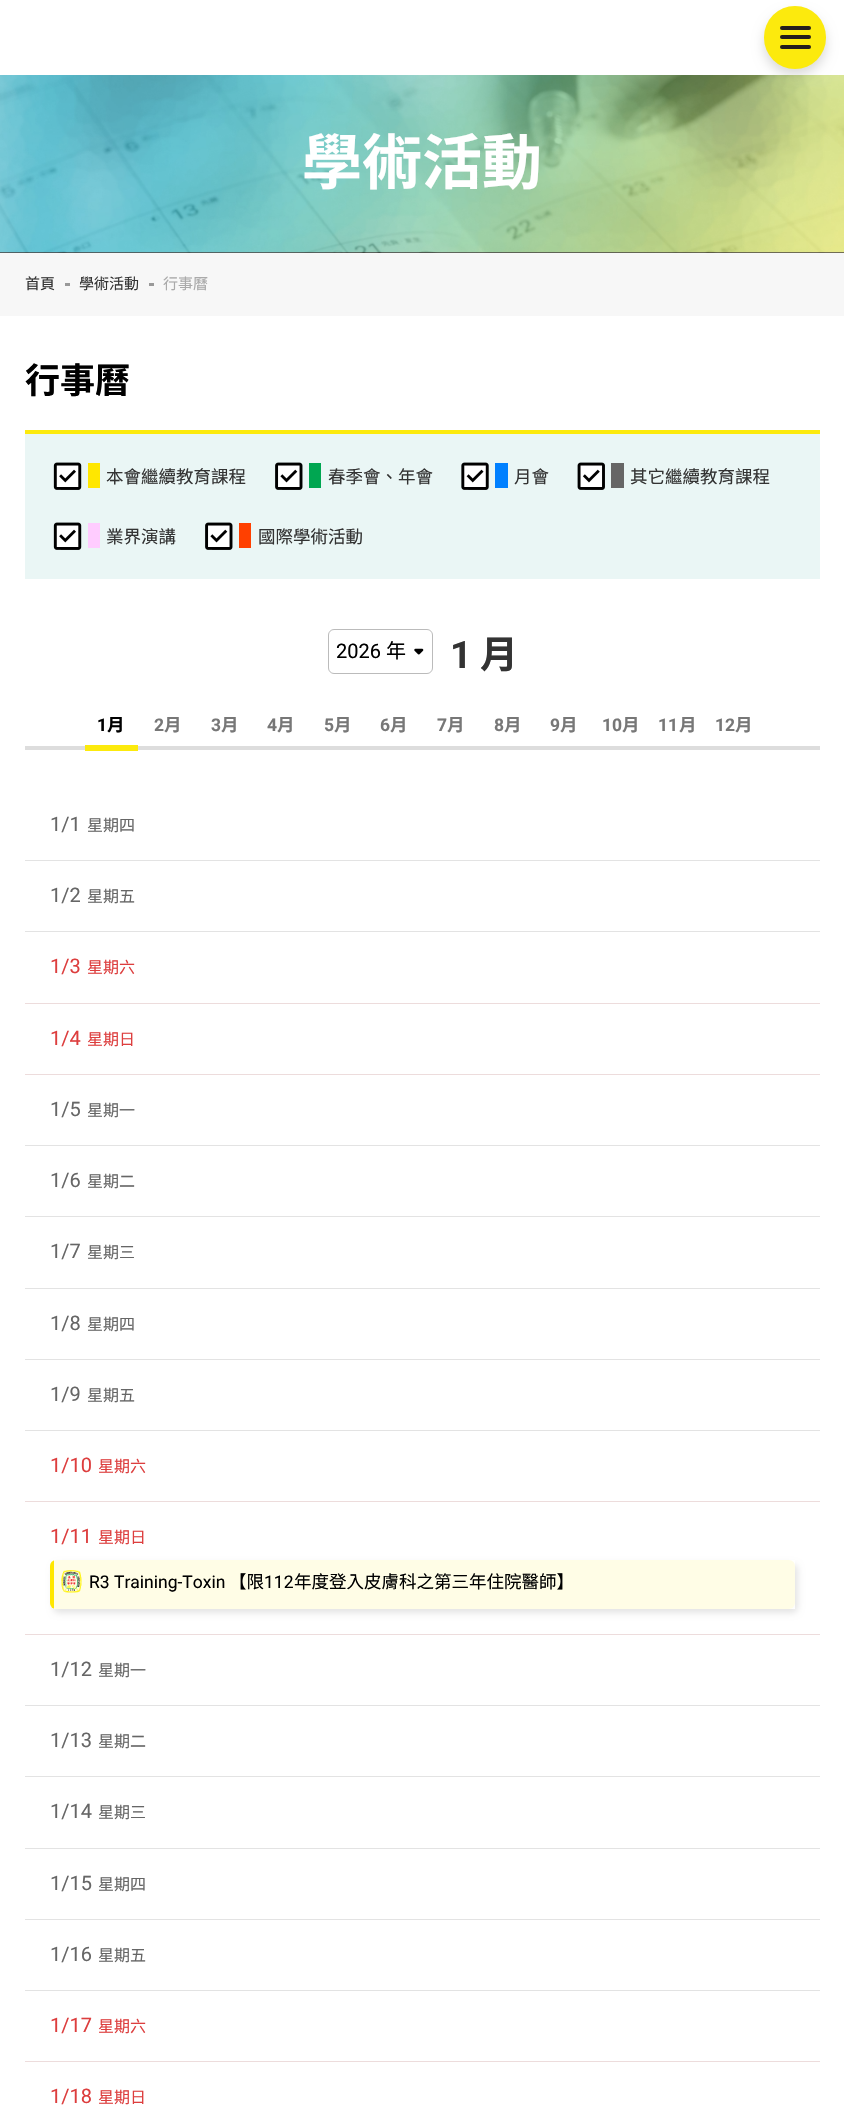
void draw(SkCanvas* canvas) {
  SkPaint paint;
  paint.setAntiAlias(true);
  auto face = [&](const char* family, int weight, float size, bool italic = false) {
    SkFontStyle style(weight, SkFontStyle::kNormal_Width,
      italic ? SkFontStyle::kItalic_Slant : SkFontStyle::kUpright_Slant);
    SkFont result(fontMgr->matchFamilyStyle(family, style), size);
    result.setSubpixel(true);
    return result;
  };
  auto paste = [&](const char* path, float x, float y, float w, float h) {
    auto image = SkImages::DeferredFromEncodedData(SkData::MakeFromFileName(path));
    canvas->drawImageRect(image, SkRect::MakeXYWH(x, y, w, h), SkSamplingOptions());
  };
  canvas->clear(0xff251e1c);
  paint.setColor(0xffffffff);
  canvas->drawRect(SkRect::MakeXYWH(0, 0, 844, 75), paint);
  paste("img/1.png", 0, 75, 844, 178);
  paste("img/2.png", 0, 75, 844, 178);
  paint.setColor(0x26000000);
  paint.setMaskFilter(SkMaskFilter::MakeBlur(kNormal_SkBlurStyle, 6));
  canvas->drawRoundRect(SkRect::MakeXYWH(764, 13, 62, 62), 31, 31, paint);
  paint.setMaskFilter(nullptr);
  paint.setColor(0xfffcea0d);
  canvas->drawRoundRect(SkRect::MakeXYWH(764, 6, 62, 63), 31, 31, paint);
  paint.setColor(0xff251e1c);
  canvas->drawRoundRect(SkRect::MakeXYWH(780, 26, 31, 4), 2, 2, paint);
  canvas->drawRoundRect(SkRect::MakeXYWH(780, 35, 31, 4), 2, 2, paint);
  canvas->drawRoundRect(SkRect::MakeXYWH(780, 45, 31, 4), 2, 2, paint);
  {
    const struct { float x, y, w, h; SkColor color; } items[] = {
      {0, 316, 844, 1801, 0xffffffff},
      {0, 253, 844, 63, 0xfff7f7f7},
      {65, 283, 5, 3, 0xff999999},
      {149, 283, 5, 3, 0xff999999},
      {25, 430, 795, 4, 0xfffcea0d},
      {25, 434, 795, 145, 0xffeaf6f5},
    };
    for (auto [x, y, w, h, color] : items) {
      paint.setColor(color);
      canvas->drawRect(SkRect::MakeXYWH(x, y, w, h), paint);
    }
  }
  paste("img/3.png", 53, 462, 29, 28);
  paint.setColor(0xffffe700);
  canvas->drawRect(SkRect::MakeXYWH(88, 463, 12, 25), paint);
  paste("img/4.png", 275, 462, 28, 28);
  paint.setColor(0xff00a651);
  canvas->drawRect(SkRect::MakeXYWH(309, 463, 12, 25), paint);
  paste("img/5.png", 461, 462, 28, 28);
  paint.setColor(0xff0080ff);
  canvas->drawRect(SkRect::MakeXYWH(495, 463, 13, 25), paint);
  paste("img/6.png", 577, 462, 28, 28);
  paint.setColor(0xff666666);
  canvas->drawRect(SkRect::MakeXYWH(611, 463, 13, 25), paint);
  paste("img/3.png", 53, 522, 29, 28);
  paint.setColor(0xffffccff);
  canvas->drawRect(SkRect::MakeXYWH(88, 523, 12, 25), paint);
  paste("img/4.png", 205, 522, 28, 28);
  paint.setColor(0xffff4000);
  canvas->drawRect(SkRect::MakeXYWH(239, 523, 12, 25), paint);
  paste("img/7.png", 414, 648, 10, 7);
  paint.setStroke(true);
  paint.setStrokeWidth(1);
  paint.setColor(0xffbbbbbb);
  canvas->drawRoundRect(SkRect::MakeXYWH(328.5f, 629.5f, 104, 44), 5.5f, 5.5f, paint);
  paint.setStroke(false);
  {
    const struct { float x, y, w, h; SkColor color; } items[] = {
      {25, 746, 795, 4, 0xffdddddd},
      {85, 745, 53, 6, 0xfffcea0d},
      {25, 860, 795, 1, 0xffe3e3e3},
      {25, 931, 795, 1, 0xffe3e3e3},
      {25, 1003, 795, 1, 0xffeddcdc},
      {25, 1074, 795, 1, 0xffeddcdc},
      {25, 1145, 795, 1, 0xffe3e3e3},
      {25, 1216, 795, 1, 0xffe3e3e3},
      {25, 1288, 795, 1, 0xffe3e3e3},
      {25, 1359, 795, 1, 0xffe3e3e3},
      {25, 1430, 795, 1, 0xffe3e3e3},
      {25, 1501, 795, 1, 0xffeddcdc},
      {25, 1634, 795, 1, 0xffeddcdc},
    };
    for (auto [x, y, w, h, color] : items) {
      paint.setColor(color);
      canvas->drawRect(SkRect::MakeXYWH(x, y, w, h), paint);
    }
  }
  paint.setColor(0x1a000000);
  paint.setMaskFilter(SkMaskFilter::MakeBlur(kNormal_SkBlurStyle, 3));
  canvas->drawRoundRect(SkRect::MakeXYWH(53, 1564, 745, 49), 6, 6, paint);
  paint.setMaskFilter(nullptr);
  paint.setColor(0xffffe700);
  canvas->drawRoundRect(SkRect::MakeXYWH(50, 1560, 745, 49), 6, 6, paint);
  paint.setColor(0xe6ffffff);
  canvas->drawRect(SkRect::MakeXYWH(54, 1560, 741, 49), paint);
  paste("img/8.png", 61, 1570, 21, 23);
  {
    const struct { float x, y, w, h; SkColor color; } items[] = {
      {25, 1705, 795, 1, 0xffe3e3e3},
      {25, 1776, 795, 1, 0xffe3e3e3},
      {25, 1848, 795, 1, 0xffe3e3e3},
      {25, 1919, 795, 1, 0xffe3e3e3},
      {25, 1990, 795, 1, 0xffe3e3e3},
      {25, 2061, 795, 1, 0xffeddcdc},
    };
    for (auto [x, y, w, h, color] : items) {
      paint.setColor(color);
      canvas->drawRect(SkRect::MakeXYWH(x, y, w, h), paint);
    }
  }
  auto f0 = face("Noto Sans TC", 700, 60);
  paint.setColor(0xffffffff);
  canvas->drawString("學術活動", 302, 184, f0, paint);
  auto f1 = face("Noto Sans TC", 400, 15);
  paint.setColor(0xff333333);
  canvas->drawString("首頁", 25, 289, f1, paint);
  canvas->drawString("學術活動", 79, 289, f1, paint);
  paint.setColor(0xffaaaaaa);
  canvas->drawString("行事曆", 163, 289, f1, paint);
  auto f2 = face("Noto Sans TC", 700, 35);
  paint.setColor(0xff000000);
  canvas->drawString("行事曆", 25, 393, f2, paint);
  auto f3 = face("Noto Sans TC", 400, 17.5f);
  paint.setColor(0xff333333);
  {
    const struct { const char* s; float x, y; } items[] = {
      {"本會繼續教育課程", 106, 483},
      {"春季會、年會", 328, 483},
      {"月會", 514, 483},
      {"其它繼續教育課程", 630, 483},
      {"業界演講", 106, 543},
      {"國際學術活動", 258, 543},
    };
    for (auto [s, x, y] : items) {
      canvas->drawString(s, x, y, f3, paint);
    }
  }
  auto f4 = face("Roboto", 400, 20);
  paint.setColor(0xff000000);
  canvas->drawString("2026", 336, 658, f4, paint);
  auto f5 = face("Noto Sans TC", 400, 20);
  canvas->drawString("年", 386, 658, f5, paint);
  auto f6 = face("Roboto", 700, 38);
  paint.setColor(0xff333333);
  canvas->drawString("1", 450, 668, f6, paint);
  auto f7 = face("Noto Sans TC", 700, 38);
  canvas->drawString("月", 480, 668, f7, paint);
  auto f8 = face("Roboto", 700, 17.5f);
  paint.setColor(0xff000000);
  canvas->drawString("1", 97, 731, f8, paint);
  auto f9 = face("Noto Sans TC", 700, 17.5f);
  canvas->drawString("月", 107, 731, f9, paint);
  paint.setColor(0xff777777);
  canvas->drawString("2", 154, 731, f8, paint);
  canvas->drawString("月", 164, 731, f9, paint);
  canvas->drawString("3", 211, 731, f8, paint);
  canvas->drawString("月", 221, 731, f9, paint);
  canvas->drawString("4", 267, 731, f8, paint);
  canvas->drawString("月", 277, 731, f9, paint);
  canvas->drawString("5", 324, 731, f8, paint);
  canvas->drawString("月", 334, 731, f9, paint);
  canvas->drawString("6", 380, 731, f8, paint);
  canvas->drawString("月", 390, 731, f9, paint);
  canvas->drawString("7", 437, 731, f8, paint);
  canvas->drawString("月", 447, 731, f9, paint);
  canvas->drawString("8", 494, 731, f8, paint);
  canvas->drawString("月", 504, 731, f9, paint);
  canvas->drawString("9", 550, 731, f8, paint);
  canvas->drawString("月", 560, 731, f9, paint);
  canvas->drawString("10", 602, 731, f8, paint);
  canvas->drawString("月", 622, 731, f9, paint);
  canvas->drawString("11", 658, 731, f8, paint);
  canvas->drawString("月", 679, 731, f9, paint);
  canvas->drawString("12", 715, 731, f8, paint);
  canvas->drawString("月", 735, 731, f9, paint);
  paint.setColor(0xff666666);
  canvas->drawString("1/1", 50, 831, f4, paint);
  auto f10 = face("Noto Sans TC", 400, 16);
  canvas->drawString("星期四", 87, 831, f10, paint);
  canvas->drawString("1/2", 50, 902, f4, paint);
  canvas->drawString("星期五", 87, 902, f10, paint);
  paint.setColor(0xffdd3e3e);
  canvas->drawString("1/3", 50, 973, f4, paint);
  canvas->drawString("星期六", 87, 973, f10, paint);
  canvas->drawString("1/4", 50, 1045, f4, paint);
  canvas->drawString("星期日", 87, 1045, f10, paint);
  paint.setColor(0xff666666);
  canvas->drawString("1/5", 50, 1116, f4, paint);
  canvas->drawString("星期一", 87, 1116, f10, paint);
  canvas->drawString("1/6", 50, 1187, f4, paint);
  canvas->drawString("星期二", 87, 1187, f10, paint);
  canvas->drawString("1/7", 50, 1258, f4, paint);
  canvas->drawString("星期三", 87, 1258, f10, paint);
  canvas->drawString("1/8", 50, 1330, f4, paint);
  canvas->drawString("星期四", 87, 1330, f10, paint);
  canvas->drawString("1/9", 50, 1401, f4, paint);
  canvas->drawString("星期五", 87, 1401, f10, paint);
  paint.setColor(0xffdd3e3e);
  canvas->drawString("1/10", 50, 1472, f4, paint);
  canvas->drawString("星期六", 98, 1472, f10, paint);
  canvas->drawString("1/11", 50, 1543, f4, paint);
  canvas->drawString("星期日", 98, 1543, f10, paint);
  auto f11 = face("Roboto", 400, 17.5f);
  paint.setColor(0xff000000);
  canvas->drawString("R3 Training-Toxin", 89, 1588, f11, paint);
  canvas->drawString("【限", 229, 1588, f3, paint);
  canvas->drawString("112", 264, 1588, f11, paint);
  canvas->drawString("年度登入皮膚科之第三年住院醫師】", 294, 1588, f3, paint);
  paint.setColor(0xff666666);
  canvas->drawString("1/12", 50, 1676, f4, paint);
  canvas->drawString("星期一", 98, 1676, f10, paint);
  canvas->drawString("1/13", 50, 1747, f4, paint);
  canvas->drawString("星期二", 98, 1747, f10, paint);
  canvas->drawString("1/14", 50, 1818, f4, paint);
  canvas->drawString("星期三", 98, 1818, f10, paint);
  canvas->drawString("1/15", 50, 1890, f4, paint);
  canvas->drawString("星期四", 98, 1890, f10, paint);
  canvas->drawString("1/16", 50, 1961, f4, paint);
  canvas->drawString("星期五", 98, 1961, f10, paint);
  paint.setColor(0xffdd3e3e);
  canvas->drawString("1/17", 50, 2032, f4, paint);
  canvas->drawString("星期六", 98, 2032, f10, paint);
  canvas->drawString("1/18", 50, 2103, f4, paint);
  canvas->drawString("星期日", 98, 2103, f10, paint);
}
